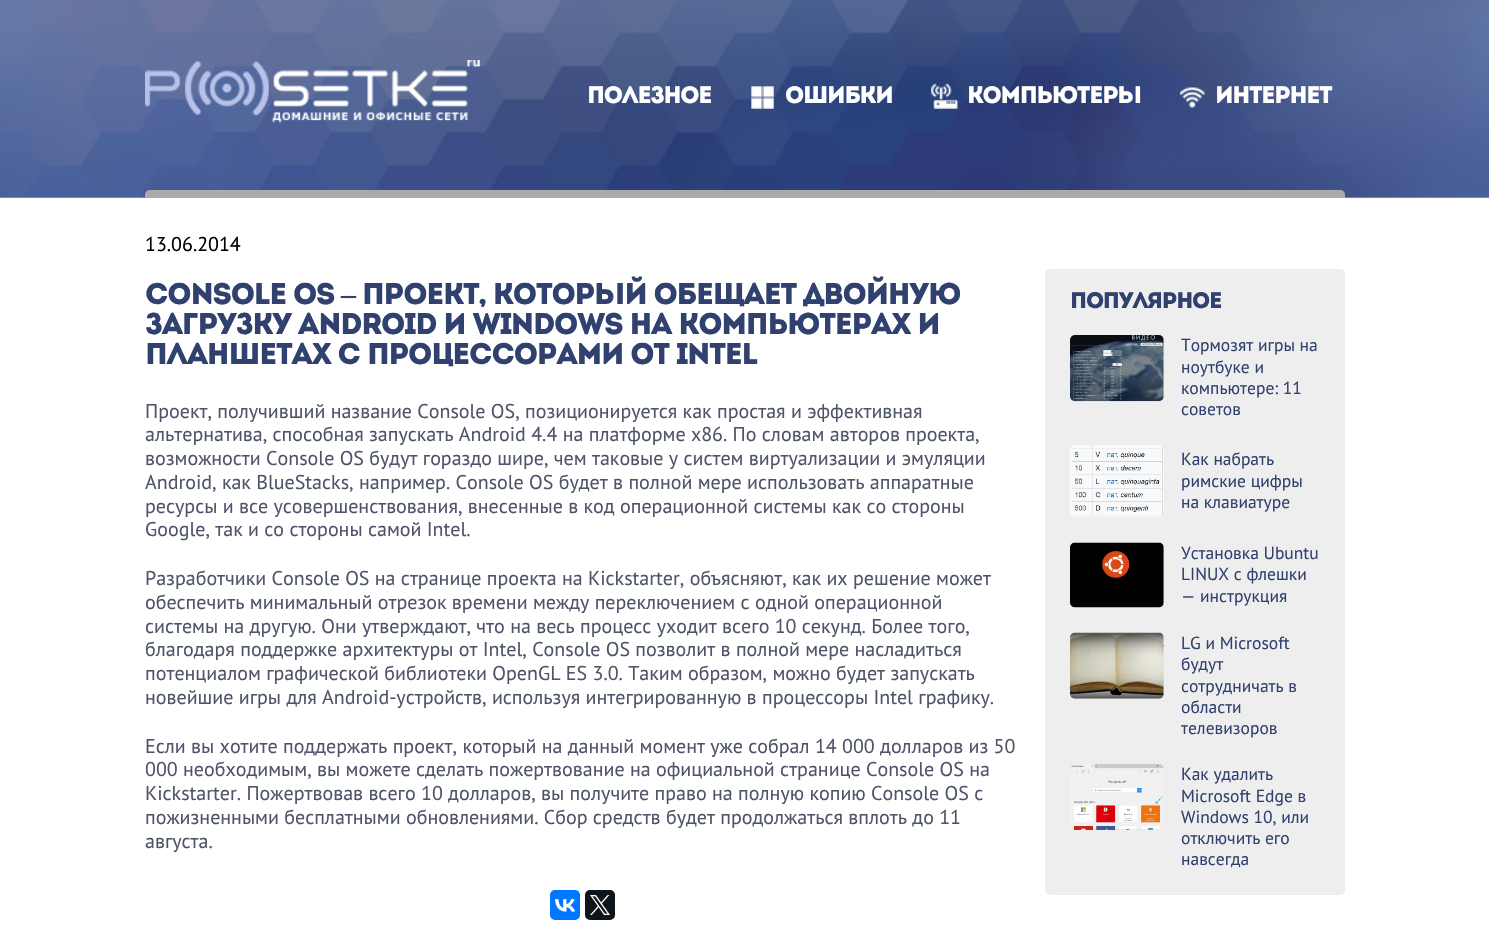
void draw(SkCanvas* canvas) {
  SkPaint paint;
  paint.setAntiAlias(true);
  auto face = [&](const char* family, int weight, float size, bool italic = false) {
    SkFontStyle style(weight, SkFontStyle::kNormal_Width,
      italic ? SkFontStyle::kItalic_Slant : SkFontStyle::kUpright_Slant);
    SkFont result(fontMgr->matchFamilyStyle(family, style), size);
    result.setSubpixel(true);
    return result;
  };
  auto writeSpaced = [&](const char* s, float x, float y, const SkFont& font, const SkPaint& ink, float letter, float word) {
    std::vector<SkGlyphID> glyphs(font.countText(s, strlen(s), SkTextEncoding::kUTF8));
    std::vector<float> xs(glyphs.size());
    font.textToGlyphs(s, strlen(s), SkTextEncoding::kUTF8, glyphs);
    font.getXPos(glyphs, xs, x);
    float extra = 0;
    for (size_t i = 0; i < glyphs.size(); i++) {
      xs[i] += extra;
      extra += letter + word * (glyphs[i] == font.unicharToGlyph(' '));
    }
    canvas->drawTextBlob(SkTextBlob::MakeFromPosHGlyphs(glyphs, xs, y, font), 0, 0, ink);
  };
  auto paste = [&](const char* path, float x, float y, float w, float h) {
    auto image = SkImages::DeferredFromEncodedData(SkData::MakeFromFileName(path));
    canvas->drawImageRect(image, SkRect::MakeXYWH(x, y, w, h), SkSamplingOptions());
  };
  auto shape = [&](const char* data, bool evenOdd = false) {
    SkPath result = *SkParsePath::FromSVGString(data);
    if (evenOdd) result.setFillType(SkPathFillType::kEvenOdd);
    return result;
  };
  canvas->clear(0xffffffff);
  paste("img/1.png", 0, 0, 1489, 198);
  paste("img/2.png", 145, 60, 335, 63);
  paint.setColor(0xffababab);
  canvas->drawPath(shape("M150 190H1340C1343 190 1345 192 1345 195V198H145V195C145 192 147 190 150 190Z"), paint);
  paste("img/3.png", 751, 86, 23, 23);
  paste("img/4.png", 931, 83, 27, 26);
  paste("img/5.png", 1180, 87, 26, 21);
  paint.setColor(0xff0077ff);
  canvas->drawRoundRect(SkRect::MakeXYWH(550, 890, 30, 30), 5, 5, paint);
  paste("img/6.png", 555, 899, 20, 13);
  paint.setColor(0xff0f1419);
  canvas->drawRoundRect(SkRect::MakeXYWH(585, 890, 30, 30), 5, 5, paint);
  paste("img/7.png", 590, 895, 20, 20);
  paint.setColor(0xffeeeeee);
  canvas->drawRoundRect(SkRect::MakeXYWH(1045, 269, 300, 626), 5, 5, paint);
  paste("img/8.png", 1070, 335, 94, 67);
  paste("img/9.png", 1070, 445, 94, 72);
  paste("img/10.png", 1070, 542, 94, 66);
  paste("img/11.png", 1070, 632, 94, 67);
  paste("img/12.png", 1070, 763, 94, 67);
  auto f0 = face("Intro", 400, 23.75f);
  paint.setColor(0xffffffff);
  {
    const struct { const char* s; float x, y; } items[] = {
      {"ПОЛЕЗНОЕ", 587, 103},
      {"ОШИБКИ", 785, 103},
      {"КОМПЬЮТЕРЫ", 967, 103},
      {"ИНТЕРНЕТ", 1215, 103},
    };
    for (auto [s, x, y] : items) {
      writeSpaced(s, x, y, f0, paint, -1.25f, 0);
    }
  }
  auto f1 = face("PT Sans", 400, 20);
  paint.setColor(0xff000000);
  canvas->drawString("13.06.2014", 145, 251, f1, paint);
  auto f2 = face("Intro", 400, 30);
  paint.setColor(0xff30416f);
  writeSpaced("CONSOLE OS", 145, 304, f2, paint, -1.25f, 0);
  auto f3 = face("Liberation Serif", 700, 30);
  writeSpaced("–", 341, 304, f3, paint, -1.25f, 0);
  {
    const struct { const char* s; float x, y; } items[] = {
      {"ПРОЕКТ, КОТОРЫЙ ОБЕЩАЕТ ДВОЙНУЮ", 362, 304},
      {"ЗАГРУЗКУ ANDROID И WINDOWS НА КОМПЬЮТЕРАХ И", 145, 334},
      {"ПЛАНШЕТАХ С ПРОЦЕССОРАМИ ОТ INTEL", 145, 364},
    };
    for (auto [s, x, y] : items) {
      writeSpaced(s, x, y, f2, paint, -1.25f, 0);
    }
  }
  paint.setColor(0xff4e5568);
  {
    const struct { const char* s; float x, y; } items[] = {
      {"Проект, получивший название Console OS, позиционируется как простая и эффективная", 145, 418},
      {"альтернатива, способная запускать Android 4.4 на платформе x86. По словам авторов проекта,", 145, 441},
      {"возможности Console OS будут гораздо шире, чем таковые у систем виртуализации и эмуляции", 145, 465},
      {"Android, как BlueStacks, например. Console OS будет в полной мере использовать аппаратные", 145, 489},
      {"ресурсы и все усовершенствования, внесенные в код операционной системы как со стороны", 145, 513},
      {"Google, так и со стороны самой Intel.", 145, 536},
      {"Разработчики Console OS на странице проекта на Kickstarter, объясняют, как их решение может", 145, 585},
      {"обеспечить минимальный отрезок времени между переключением с одной операционной", 145, 609},
      {"системы на другую. Они утверждают, что на весь процесс уходит всего 10 секунд. Более того,", 145, 633},
      {"благодаря поддержке архитектуры от Intel, Console OS позволит в полной мере насладиться", 145, 656},
      {"потенциалом графической библиотеки OpenGL ES 3.0. Таким образом, можно будет запускать", 145, 680},
      {"новейшие игры для Android-устройств, используя интегрированную в процессоры Intel графику.", 145, 704},
      {"Если вы хотите поддержать проект, который на данный момент уже собрал 14 000 долларов из 50", 145, 753},
      {"000 необходимым, вы можете сделать пожертвование на официальной странице Console OS на", 145, 776},
      {"Kickstarter. Пожертвовав всего 10 долларов, вы получите право на полную копию Console OS с", 145, 800},
      {"пожизненными бесплатными обновлениями. Сбор средств будет продолжаться вплоть до 11", 145, 824},
      {"августа.", 145, 848},
    };
    for (auto [s, x, y] : items) {
      canvas->drawString(s, x, y, f1, paint);
    }
  }
  auto f4 = face("Intro", 400, 22.5f);
  paint.setColor(0xff30416f);
  writeSpaced("ПОПУЛЯРНОЕ", 1070, 308, f4, paint, -1.25f, 0);
  auto f5 = face("PT Sans", 400, 17.5f);
  {
    const struct { const char* s; float x, y; } items[] = {
      {"Тормозят игры на", 1181, 351},
      {"ноутбуке и", 1181, 373},
      {"компьютере: 11", 1181, 394},
      {"советов", 1181, 415},
      {"Как набрать", 1181, 465},
      {"римские цифры", 1181, 487},
      {"на клавиатуре", 1181, 508},
      {"Установка Ubuntu", 1181, 559},
      {"LINUX с флешки", 1181, 580},
      {"— инструкция", 1181, 602},
      {"LG и Microsoft", 1181, 649},
      {"будут", 1181, 670},
      {"сотрудничать в", 1181, 692},
      {"области", 1181, 713},
      {"телевизоров", 1181, 734},
      {"Как удалить", 1181, 780},
      {"Microsoft Edge в", 1181, 802},
      {"Windows 10, или", 1181, 823},
      {"отключить его", 1181, 844},
      {"навсегда", 1181, 865},
    };
    for (auto [s, x, y] : items) {
      canvas->drawString(s, x, y, f5, paint);
    }
  }
}
